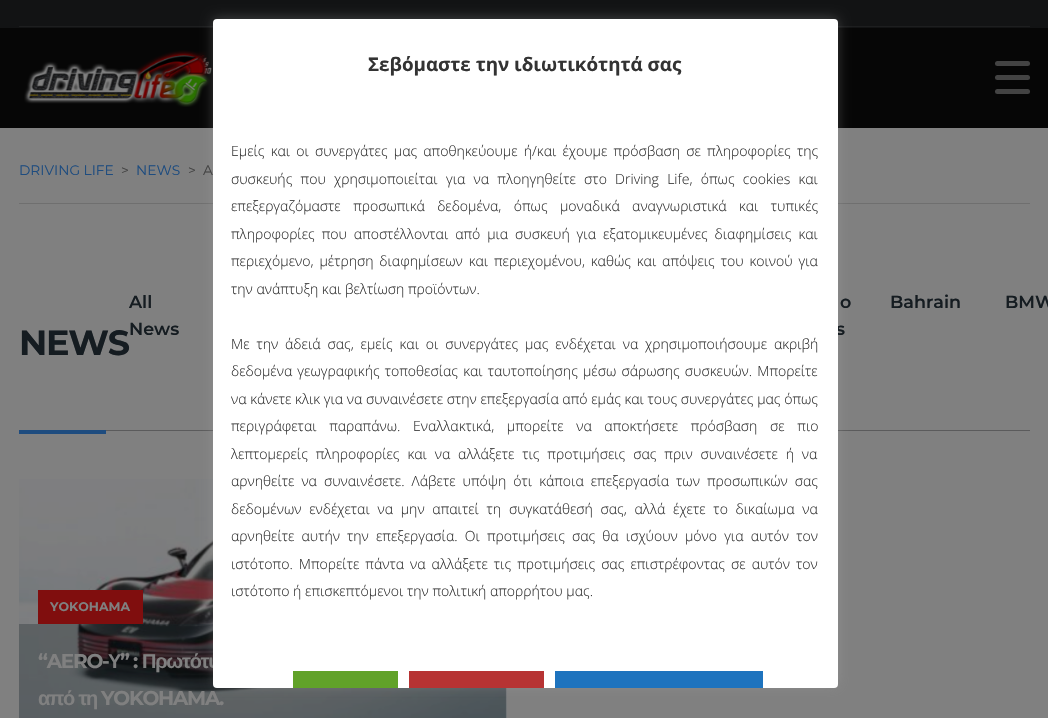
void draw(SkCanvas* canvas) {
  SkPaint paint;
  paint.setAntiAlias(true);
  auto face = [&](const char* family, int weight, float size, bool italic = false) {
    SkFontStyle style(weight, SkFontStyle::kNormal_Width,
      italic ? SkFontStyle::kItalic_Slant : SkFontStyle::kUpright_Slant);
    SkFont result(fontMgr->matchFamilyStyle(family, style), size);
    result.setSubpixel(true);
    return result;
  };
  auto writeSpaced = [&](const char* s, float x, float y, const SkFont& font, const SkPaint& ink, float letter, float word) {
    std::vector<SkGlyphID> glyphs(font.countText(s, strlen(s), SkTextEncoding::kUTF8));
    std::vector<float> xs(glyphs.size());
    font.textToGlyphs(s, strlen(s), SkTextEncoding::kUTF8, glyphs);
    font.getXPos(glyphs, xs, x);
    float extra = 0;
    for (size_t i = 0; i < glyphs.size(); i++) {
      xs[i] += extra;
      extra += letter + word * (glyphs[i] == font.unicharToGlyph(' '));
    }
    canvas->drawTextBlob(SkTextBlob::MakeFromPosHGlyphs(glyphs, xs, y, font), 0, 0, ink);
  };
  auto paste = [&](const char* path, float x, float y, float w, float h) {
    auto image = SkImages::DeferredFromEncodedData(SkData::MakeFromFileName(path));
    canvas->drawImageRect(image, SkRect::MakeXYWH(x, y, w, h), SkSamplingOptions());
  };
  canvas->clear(0xff808080);
  {
    const struct { float x, y, w, h; SkColor color; } items[] = {
      {0, 0, 1048, 28, 0xff121314},
      {19, 26, 1011, 1, 0xff1d1e1f},
      {0, 28, 1048, 100, 0xff060606},
    };
    for (auto [x, y, w, h, color] : items) {
      paint.setColor(color);
      canvas->drawRect(SkRect::MakeXYWH(x, y, w, h), paint);
    }
  }
  paste("img/1.png", 24, 50, 188, 57);
  paint.setColor(0xff6f6f6f);
  canvas->drawRect(SkRect::MakeXYWH(19, 203, 1011, 1), paint);
  paint.setColor(0xff5b5b5c);
  canvas->drawRect(SkRect::MakeXYWH(106, 430, 924, 1), paint);
  paste("img/2.png", 19, 479, 488, 239);
  paint.setColor(0x4d152023);
  canvas->drawRect(SkRect::MakeXYWH(19, 624, 487, 94), paint);
  paint.setColor(0x4dacabab);
  paint.setMaskFilter(SkMaskFilter::MakeBlur(kNormal_SkBlurStyle, 6));
  canvas->drawRoundRect(SkRect::MakeXYWH(213, 18, 625, 668), 4, 4, paint);
  paint.setMaskFilter(nullptr);
  paint.setColor(0xff434343);
  canvas->drawRoundRect(SkRect::MakeXYWH(995, 61, 35, 5), 2.5f, 2.5f, paint);
  canvas->drawRoundRect(SkRect::MakeXYWH(995, 75, 35, 5), 2.5f, 2.5f, paint);
  canvas->drawRoundRect(SkRect::MakeXYWH(995, 89, 35, 5), 2.5f, 2.5f, paint);
  paint.setColor(0xff1e4c7f);
  canvas->drawRect(SkRect::MakeXYWH(19, 430, 87, 4), paint);
  paint.setColor(0xff800e0e);
  canvas->drawRect(SkRect::MakeXYWH(38, 590, 105, 34), paint);
  auto f0 = face("Montserrat", 400, 13.75f);
  paint.setColor(0xff1e4c7f);
  canvas->drawString("DRIVING LIFE", 19, 175, f0, paint);
  paint.setColor(0xff444444);
  canvas->drawString(">", 121, 175, f0, paint);
  paint.setColor(0xff1e4c7f);
  canvas->drawString("NEWS", 136, 175, f0, paint);
  paint.setColor(0xff444444);
  canvas->drawString(">", 188, 175, f0, paint);
  canvas->drawString("A", 203, 175, f0, paint);
  auto f1 = face("Montserrat", 600, 17.5f);
  paint.setColor(0xff151c21);
  {
    const struct { const char* s; float x, y; } items[] = {
      {"All", 129, 308},
      {"News", 129, 335},
      {"o", 840, 308},
      {"s", 836, 335},
      {"Bahrain", 890, 308},
      {"BMW", 1005, 308},
    };
    for (auto [s, x, y] : items) {
      canvas->drawString(s, x, y, f1, paint);
    }
  }
  auto f2 = face("Montserrat", 700, 35);
  writeSpaced("NEWS", 19, 355, f2, paint, -1.25f, 0);
  auto f3 = face("Montserrat", 700, 12.5f);
  paint.setColor(0xff808080);
  canvas->drawString("YOKOHAMA", 50, 611, f3, paint);
  auto f4 = face("Montserrat", 700, 20);
  writeSpaced("“AERO-", 38, 668, f4, paint, -1.25f, 0);
  auto f5 = face("Liberation Sans", 700, 20);
  writeSpaced("Υ", 108, 668, f5, paint, -1.25f, 0);
  writeSpaced("” :", 120, 668, f4, paint, -1.25f, 0);
  writeSpaced("Πρωτότυ", 142, 668, f5, paint, -1.25f, 0);
  paint.setColor(0xffffffff);
  canvas->drawRoundRect(SkRect::MakeXYWH(213, 19, 625, 669), 4, 4, paint);
  {
    const struct { float x, y, w, h; SkColor color; } items[] = {
      {555, 671, 208, 17, 0xff1e73be},
      {409, 671, 135, 17, 0xffb73333},
      {293, 671, 105, 17, 0xff61a229},
    };
    for (auto [x, y, w, h, color] : items) {
      paint.setColor(color);
      canvas->drawRect(SkRect::MakeXYWH(x, y, w, h), paint);
    }
  }
  auto f6 = face("Open Sans", 300, 14.05f);
  paint.setColor(0xff333333);
  canvas->drawString("ιστότοπο ή επισκεπτόμενοι την πολιτική απορρήτου μας.", 231, 596, f6, paint);
  writeSpaced("ιστότοπο. Μπορείτε πάντα να αλλάξετε τις προτιμήσεις σας επιστρέφοντας σε αυτόν τον", 231, 569, f6, paint, 0, 2.4f);
  writeSpaced("αρνηθείτε αυτήν την επεξεργασία. Οι προτιμήσεις σας θα ισχύουν μόνο για αυτόν τον", 231, 541, f6, paint, 0, 3.5f);
  writeSpaced("δεδομένων ενδέχεται να μην απαιτεί τη συγκατάθεσή σας, αλλά έχετε το δικαίωμα να", 231, 514, f6, paint, 0, 4.1f);
  writeSpaced("αρνηθείτε να συναινέσετε. Λάβετε υπόψη ότι κάποια επεξεργασία των προσωπικών σας", 231, 486, f6, paint, 0, 3.4f);
  writeSpaced("λεπτομερείς πληροφορίες και να αλλάξετε τις προτιμήσεις σας πριν συναινέσετε ή να", 231, 459, f6, paint, 0, 4.25f);
  writeSpaced("περιγράφεται παραπάνω. Εναλλακτικά, μπορείτε να αποκτήσετε πρόσβαση σε πιο", 231, 431, f6, paint, 0, 9);
  canvas->drawString("να κάνετε κλικ για να συναινέσετε στην επεξεργασία από εμάς και τους συνεργάτες μας όπως", 231, 404, f6, paint);
  writeSpaced("δεδομένα γεωγραφικής τοποθεσίας και ταυτοποίησης μέσω σάρωσης συσκευών. Μπορείτε", 231, 376, f6, paint, 0, 1.5f);
  writeSpaced("Με την άδειά σας, εμείς και οι συνεργάτες μας ενδέχεται να χρησιμοποιήσουμε ακριβή", 231, 349, f6, paint, 0, 3.25f);
  canvas->drawString("την ανάπτυξη και βελτίωση προϊόντων.", 231, 294, f6, paint);
  writeSpaced("περιεχόμενο, μέτρηση διαφημίσεων και περιεχομένου, καθώς και απόψεις του κοινού για", 231, 266, f6, paint, 0, 2.25f);
  writeSpaced("πληροφορίες που αποστέλλονται από μια συσκευή για εξατομικευμένες διαφημίσεις και", 231, 239, f6, paint, 0, 3.25f);
  writeSpaced("επεξεργαζόμαστε προσωπικά δεδομένα, όπως μοναδικά αναγνωριστικά και τυπικές", 231, 211, f6, paint, 0, 8.75f);
  writeSpaced("συσκευής που χρησιμοποιείται για να πλοηγηθείτε στο Driving Life, όπως cookies και", 231, 184, f6, paint, 0, 4.6f);
  writeSpaced("Εμείς και οι συνεργάτες μας αποθηκεύουμε ή/και έχουμε πρόσβαση σε πληροφορίες της", 231, 156, f6, paint, 0, 2.5f);
  auto f7 = face("Open Sans", 700, 18.75f);
  canvas->drawString("Σεβόμαστε την ιδιωτικότητά σας", 368, 71, f7, paint);
  paint.setColor(0xff808080);
  writeSpaced("από τη", 38, 705, f5, paint, -1.25f, 0);
  writeSpaced("YOKOHAMA.", 101, 705, f4, paint, -1.25f, 0);
}
